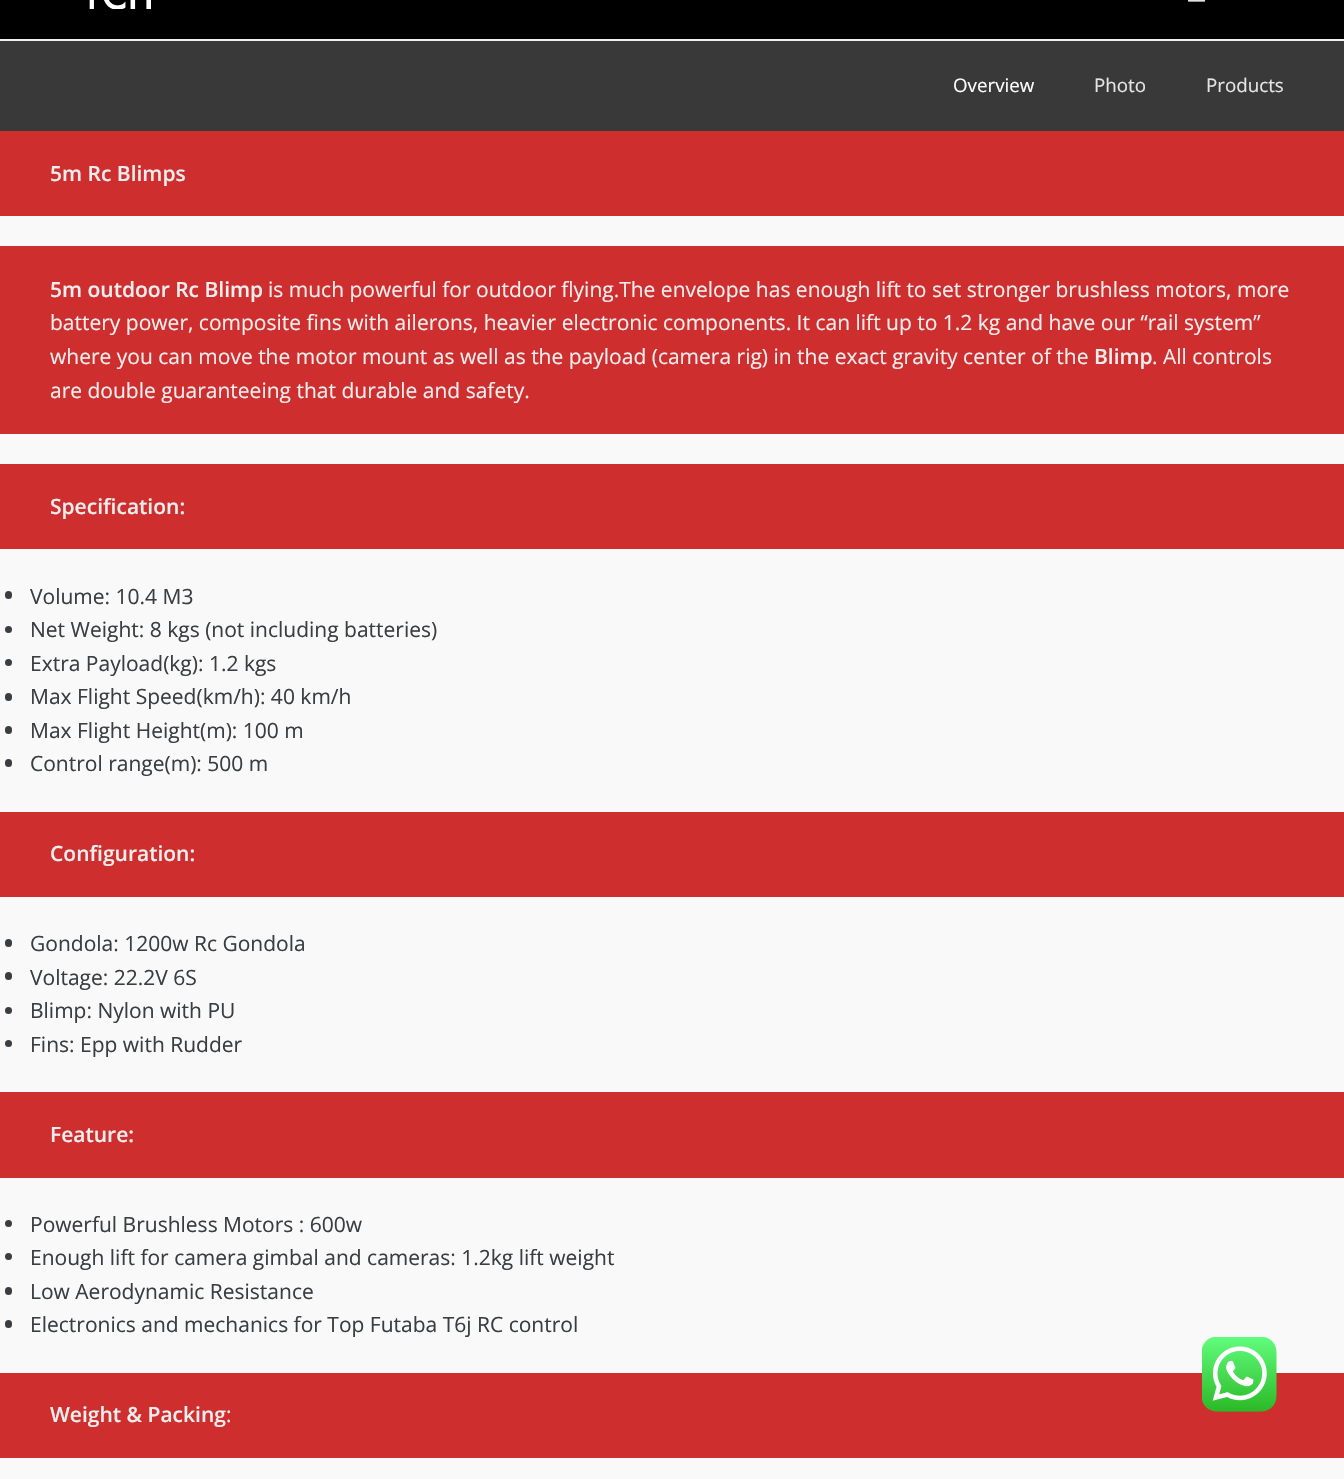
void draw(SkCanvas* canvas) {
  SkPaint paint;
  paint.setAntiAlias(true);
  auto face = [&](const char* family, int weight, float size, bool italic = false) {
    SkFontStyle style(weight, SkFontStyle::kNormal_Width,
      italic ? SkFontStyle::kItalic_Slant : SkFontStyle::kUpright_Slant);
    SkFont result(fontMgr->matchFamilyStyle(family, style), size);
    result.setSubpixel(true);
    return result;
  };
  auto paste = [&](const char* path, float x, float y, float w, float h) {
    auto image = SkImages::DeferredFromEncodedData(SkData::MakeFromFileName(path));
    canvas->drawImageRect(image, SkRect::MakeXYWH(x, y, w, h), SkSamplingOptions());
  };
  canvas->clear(0xfff9f9f9);
  paint.setColor(0xff000000);
  canvas->drawRect(SkRect::MakeXYWH(0, 0, 1344, 39), paint);
  paint.setColor(0xfff1f1f1);
  canvas->drawRect(SkRect::MakeXYWH(0, 39, 1344, 2), paint);
  paste("img/1.png", 89, 0, 62, 9);
  paste("img/2.png", 1188, 0, 18, 2);
  {
    const struct { float x, y, w, h; SkColor color; } items[] = {
      {0, 41, 1344, 90, 0xff393939},
      {0, 131, 1344, 85, 0xffcf2e2e},
      {0, 246, 1344, 188, 0xffcf2e2e},
      {0, 464, 1344, 85, 0xffcf2e2e},
    };
    for (auto [x, y, w, h, color] : items) {
      paint.setColor(color);
      canvas->drawRect(SkRect::MakeXYWH(x, y, w, h), paint);
    }
  }
  paint.setColor(0xff3b3e40);
  canvas->drawRoundRect(SkRect::MakeXYWH(5, 591, 7, 8), 3.5f, 3.5f, paint);
  canvas->drawCircle(8.5f, 629.5f, 3.5f, paint);
  canvas->drawCircle(8.5f, 662.5f, 3.5f, paint);
  canvas->drawRoundRect(SkRect::MakeXYWH(5, 693, 7, 8), 3.5f, 3.5f, paint);
  canvas->drawRoundRect(SkRect::MakeXYWH(5, 726, 7, 8), 3.5f, 3.5f, paint);
  canvas->drawRoundRect(SkRect::MakeXYWH(5, 759, 7, 8), 3.5f, 3.5f, paint);
  paint.setColor(0xffcf2e2e);
  canvas->drawRect(SkRect::MakeXYWH(0, 812, 1344, 85), paint);
  paint.setColor(0xff3b3e40);
  canvas->drawRoundRect(SkRect::MakeXYWH(5, 939, 7, 8), 3.5f, 3.5f, paint);
  canvas->drawRoundRect(SkRect::MakeXYWH(5, 972, 7, 8), 3.5f, 3.5f, paint);
  canvas->drawCircle(8.5f, 1010.5f, 3.5f, paint);
  canvas->drawCircle(8.5f, 1043.5f, 3.5f, paint);
  paint.setColor(0xffcf2e2e);
  canvas->drawRect(SkRect::MakeXYWH(0, 1092, 1344, 86), paint);
  paint.setColor(0xff3b3e40);
  canvas->drawCircle(8.5f, 1223.5f, 3.5f, paint);
  canvas->drawCircle(8.5f, 1256.5f, 3.5f, paint);
  canvas->drawRoundRect(SkRect::MakeXYWH(5, 1287, 7, 8), 3.5f, 3.5f, paint);
  canvas->drawRoundRect(SkRect::MakeXYWH(5, 1320, 7, 8), 3.5f, 3.5f, paint);
  paint.setColor(0xffcf2e2e);
  canvas->drawRect(SkRect::MakeXYWH(0, 1373, 1344, 85), paint);
  paste("img/3.png", 1202, 1337, 75, 75);
  auto f0 = face("Open Sans", 400, 18.75f);
  paint.setColor(0xffffffff);
  canvas->drawString("Overview", 953, 92, f0, paint);
  paint.setColor(0xffe5e5e5);
  canvas->drawString("Photo", 1094, 92, f0, paint);
  canvas->drawString("Products", 1206, 92, f0, paint);
  auto f1 = face("Open Sans", 600, 21);
  paint.setColor(0xffeeeeee);
  canvas->drawString("5m Rc Blimps", 50, 181, f1, paint);
  canvas->drawString("5m outdoor Rc Blimp", 50, 297, f1, paint);
  auto f2 = face("Open Sans", 400, 21);
  {
    const struct { const char* s; float x, y; } items[] = {
      {"is much powerful for outdoor flying.The envelope has enough lift to set stronger brushless motors, more", 268, 297},
      {"battery power, composite fins with ailerons, heavier electronic components. It can lift up to 1.2 kg and have our “rail system”", 50, 330},
      {"where you can move the motor mount as well as the payload (camera rig) in the exact gravity center of the", 50, 364},
    };
    for (auto [s, x, y] : items) {
      canvas->drawString(s, x, y, f2, paint);
    }
  }
  canvas->drawString("Blimp", 1094, 364, f1, paint);
  canvas->drawString(". All controls", 1152, 364, f2, paint);
  canvas->drawString("are double guaranteeing that durable and safety.", 50, 398, f2, paint);
  canvas->drawString("Specification:", 50, 514, f1, paint);
  paint.setColor(0xff3b3e40);
  {
    const struct { const char* s; float x, y; } items[] = {
      {"Volume: 10.4 M3", 30, 604},
      {"Net Weight: 8 kgs (not including batteries)", 30, 637},
      {"Extra Payload(kg): 1.2 kgs", 30, 671},
      {"Max Flight Speed(km/h): 40 km/h", 30, 704},
      {"Max Flight Height(m): 100 m", 30, 738},
      {"Control range(m): 500 m", 30, 771},
    };
    for (auto [s, x, y] : items) {
      canvas->drawString(s, x, y, f2, paint);
    }
  }
  paint.setColor(0xffeeeeee);
  canvas->drawString("Configuration:", 50, 861, f1, paint);
  paint.setColor(0xff3b3e40);
  {
    const struct { const char* s; float x, y; } items[] = {
      {"Gondola: 1200w Rc Gondola", 30, 951},
      {"Voltage: 22.2V 6S", 30, 985},
      {"Blimp: Nylon with PU", 30, 1018},
      {"Fins: Epp with Rudder", 30, 1052},
    };
    for (auto [s, x, y] : items) {
      canvas->drawString(s, x, y, f2, paint);
    }
  }
  paint.setColor(0xffeeeeee);
  canvas->drawString("Feature:", 50, 1142, f1, paint);
  paint.setColor(0xff3b3e40);
  {
    const struct { const char* s; float x, y; } items[] = {
      {"Powerful Brushless Motors : 600w", 30, 1232},
      {"Enough lift for camera gimbal and cameras: 1.2kg lift weight", 30, 1265},
      {"Low Aerodynamic Resistance", 30, 1299},
      {"Electronics and mechanics for Top Futaba T6j RC control", 30, 1332},
    };
    for (auto [s, x, y] : items) {
      canvas->drawString(s, x, y, f2, paint);
    }
  }
  paint.setColor(0xffeeeeee);
  canvas->drawString("Weight & Packing", 50, 1422, f1, paint);
  canvas->drawString(":", 226, 1422, f2, paint);
}
